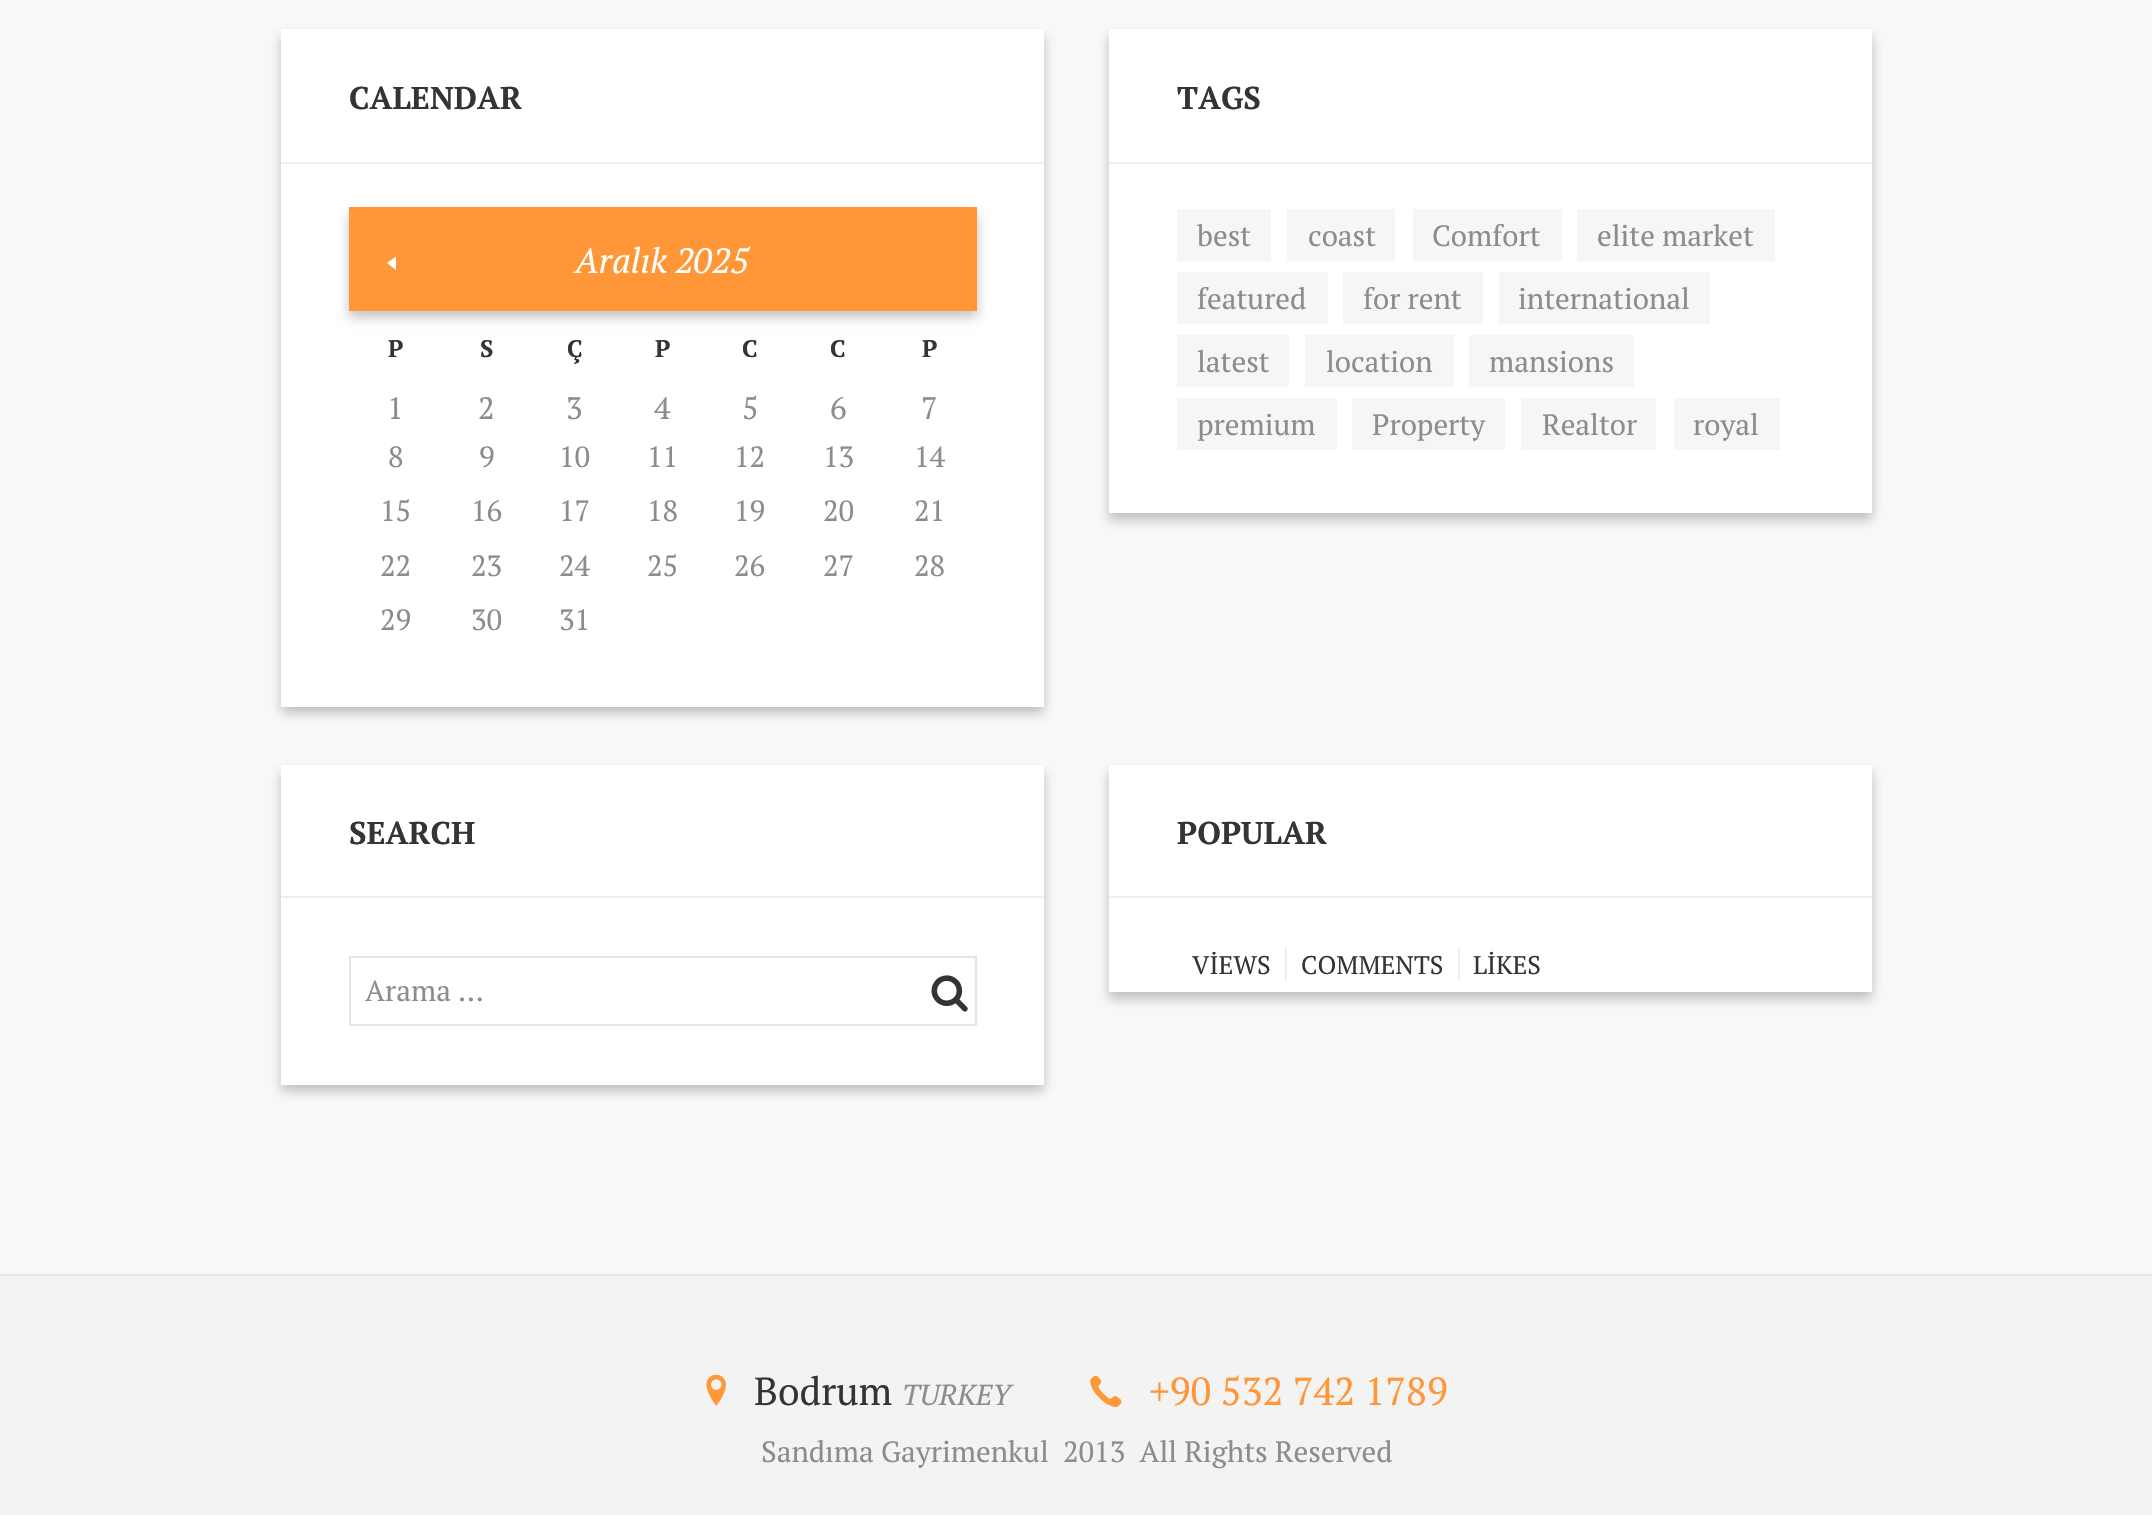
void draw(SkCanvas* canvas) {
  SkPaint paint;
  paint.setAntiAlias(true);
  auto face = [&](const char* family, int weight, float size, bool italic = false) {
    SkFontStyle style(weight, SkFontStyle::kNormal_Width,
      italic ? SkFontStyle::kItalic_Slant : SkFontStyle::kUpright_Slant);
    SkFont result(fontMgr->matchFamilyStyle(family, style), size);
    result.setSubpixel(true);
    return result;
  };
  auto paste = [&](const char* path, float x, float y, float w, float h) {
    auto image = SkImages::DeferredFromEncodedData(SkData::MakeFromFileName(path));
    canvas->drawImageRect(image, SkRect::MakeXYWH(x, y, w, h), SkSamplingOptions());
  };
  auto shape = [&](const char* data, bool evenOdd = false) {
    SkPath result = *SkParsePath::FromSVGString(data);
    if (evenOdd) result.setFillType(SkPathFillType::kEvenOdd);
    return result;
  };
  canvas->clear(0xfff9f9f9);
  paint.setColor(0x3d000000);
  paint.setMaskFilter(SkMaskFilter::MakeBlur(kNormal_SkBlurStyle, 5.5f));
  canvas->drawRect(SkRect::MakeXYWH(281, 36, 763, 677), paint);
  paint.setMaskFilter(nullptr);
  paint.setColor(0xffffffff);
  canvas->drawRect(SkRect::MakeXYWH(281, 29, 763, 678), paint);
  paint.setColor(0xffefefef);
  canvas->drawRect(SkRect::MakeXYWH(281, 162, 763, 2), paint);
  paint.setColor(0x3d000000);
  paint.setMaskFilter(SkMaskFilter::MakeBlur(kNormal_SkBlurStyle, 5.5f));
  canvas->drawRect(SkRect::MakeXYWH(349, 214, 628, 103), paint);
  paint.setMaskFilter(nullptr);
  paint.setColor(0xffff9638);
  canvas->drawRect(SkRect::MakeXYWH(349, 207, 628, 104), paint);
  paint.setColor(0xffffffff);
  canvas->drawPath(shape("M396 256.5V270L387 263Z"), paint);
  paint.setColor(0x3d000000);
  paint.setMaskFilter(SkMaskFilter::MakeBlur(kNormal_SkBlurStyle, 5.5f));
  canvas->drawRect(SkRect::MakeXYWH(1109, 36, 763, 484), paint);
  paint.setMaskFilter(nullptr);
  {
    const struct { float x, y, w, h; SkColor color; } items[] = {
      {1109, 29, 763, 484, 0xffffffff},
      {1109, 162, 763, 2, 0xffefefef},
      {1177, 209, 94, 52, 0xfff6f6f4},
      {1287, 209, 108, 52, 0xfff6f6f4},
      {1413, 209, 149, 52, 0xfff6f6f4},
      {1577, 209, 198, 52, 0xfff6f6f4},
      {1177, 272, 151, 52, 0xfff6f6f4},
      {1343, 272, 140, 52, 0xfff6f6f4},
      {1499, 272, 211, 52, 0xfff6f6f4},
      {1177, 335, 112, 52, 0xfff6f6f4},
      {1305, 335, 149, 52, 0xfff6f6f4},
      {1469, 335, 165, 52, 0xfff6f6f4},
      {1177, 398, 160, 52, 0xfff6f6f4},
      {1352, 398, 153, 52, 0xfff6f6f4},
      {1521, 398, 135, 52, 0xfff6f6f4},
      {1674, 398, 106, 52, 0xfff6f6f4},
    };
    for (auto [x, y, w, h, color] : items) {
      paint.setColor(color);
      canvas->drawRect(SkRect::MakeXYWH(x, y, w, h), paint);
    }
  }
  paint.setColor(0x3d000000);
  paint.setMaskFilter(SkMaskFilter::MakeBlur(kNormal_SkBlurStyle, 5.5f));
  canvas->drawRect(SkRect::MakeXYWH(281, 772, 763, 319), paint);
  paint.setMaskFilter(nullptr);
  paint.setColor(0xffffffff);
  canvas->drawRect(SkRect::MakeXYWH(281, 765, 763, 320), paint);
  paint.setColor(0xffefefef);
  canvas->drawRect(SkRect::MakeXYWH(281, 896, 763, 2), paint);
  paint.setStroke(true);
  paint.setStrokeWidth(2);
  paint.setColor(0xffe3e4e9);
  canvas->drawRect(SkRect::MakeXYWH(350, 957, 626, 68), paint);
  paste("img/1.png", 931, 975, 37, 37);
  paint.setStroke(false);
  paint.setColor(0x3d000000);
  paint.setMaskFilter(SkMaskFilter::MakeBlur(kNormal_SkBlurStyle, 5.5f));
  canvas->drawRect(SkRect::MakeXYWH(1109, 772, 763, 227), paint);
  paint.setMaskFilter(nullptr);
  {
    const struct { float x, y, w, h; SkColor color; } items[] = {
      {1109, 765, 763, 227, 0xffffffff},
      {1109, 896, 763, 2, 0xffefefef},
      {1285, 947, 2, 34, 0xffefefef},
      {1458, 947, 2, 34, 0xffefefef},
      {0, 1274, 2152, 2, 0xffe8e7e7},
      {0, 1276, 2152, 239, 0xfff3f3f3},
    };
    for (auto [x, y, w, h, color] : items) {
      paint.setColor(color);
      canvas->drawRect(SkRect::MakeXYWH(x, y, w, h), paint);
    }
  }
  paste("img/2.png", 706, 1374, 20, 32);
  paste("img/3.png", 1090, 1375, 32, 32);
  auto f0 = face("PT Serif", 700, 31.5f);
  paint.setColor(0xff343434);
  canvas->drawString("CALENDAR", 349, 109, f0, paint);
  auto f1 = face("PT Serif", 400, 35, true);
  paint.setColor(0xffffffff);
  canvas->drawString("Aralık 2025", 575, 273, f1, paint);
  auto f2 = face("PT Serif", 700, 24);
  paint.setColor(0xff343434);
  {
    const struct { const char* s; float x, y; } items[] = {
      {"P", 388, 357},
      {"S", 480, 357},
      {"Ç", 567, 357},
      {"P", 655, 357},
      {"C", 742, 357},
      {"C", 830, 357},
      {"P", 922, 357},
    };
    for (auto [s, x, y] : items) {
      canvas->drawString(s, x, y, f2, paint);
    }
  }
  auto f3 = face("PT Serif", 400, 31);
  paint.setColor(0xff8c8c8c);
  {
    const struct { const char* s; float x, y; } items[] = {
      {"1", 387, 419},
      {"2", 478, 419},
      {"3", 566, 419},
      {"4", 654, 419},
      {"5", 742, 419},
      {"6", 830, 419},
      {"7", 921, 419},
    };
    for (auto [s, x, y] : items) {
      canvas->drawString(s, x, y, f3, paint);
    }
  }
  auto f4 = face("PT Serif", 400, 29.25f);
  {
    const struct { const char* s; float x, y; } items[] = {
      {"8", 388, 467},
      {"9", 479, 467},
      {"10", 559, 467},
      {"11", 647, 467},
      {"12", 734, 467},
      {"13", 823, 467},
      {"14", 914, 467},
      {"15", 380, 521},
      {"16", 471, 521},
      {"17", 559, 521},
      {"18", 647, 521},
      {"19", 734, 521},
      {"20", 823, 521},
      {"21", 914, 521},
      {"22", 380, 576},
      {"23", 471, 576},
      {"24", 559, 576},
      {"25", 647, 576},
      {"26", 734, 576},
      {"27", 823, 576},
      {"28", 914, 576},
      {"29", 380, 630},
      {"30", 471, 630},
      {"31", 559, 630},
    };
    for (auto [s, x, y] : items) {
      canvas->drawString(s, x, y, f4, paint);
    }
  }
  paint.setColor(0xff343434);
  canvas->drawString("TAGS", 1177, 109, f0, paint);
  paint.setColor(0xff8c8c8c);
  {
    const struct { const char* s; float x, y; } items[] = {
      {"best", 1197, 246},
      {"coast", 1308, 246},
      {"Comfort", 1432, 246},
      {"elite market", 1597, 246},
      {"featured", 1197, 309},
      {"for rent", 1363, 309},
      {"international", 1518, 309},
      {"latest", 1197, 372},
      {"location", 1326, 372},
      {"mansions", 1489, 372},
      {"premium", 1197, 435},
      {"Property", 1372, 435},
      {"Realtor", 1542, 435},
      {"royal", 1693, 435},
    };
    for (auto [s, x, y] : items) {
      canvas->drawString(s, x, y, f4, paint);
    }
  }
  paint.setColor(0xff343434);
  canvas->drawString("SEARCH", 349, 844, f0, paint);
  paint.setColor(0xff8c8c8c);
  canvas->drawString("Arama …", 365, 1001, f4, paint);
  paint.setColor(0xff343434);
  canvas->drawString("POPULAR", 1177, 844, f0, paint);
  auto f5 = face("PT Serif", 400, 25.5f);
  {
    const struct { const char* s; float x, y; } items[] = {
      {"VİEWS", 1192, 974},
      {"COMMENTS", 1301, 974},
      {"LİKES", 1473, 974},
    };
    for (auto [s, x, y] : items) {
      canvas->drawString(s, x, y, f5, paint);
    }
  }
  auto f6 = face("PT Serif", 400, 39);
  canvas->drawString("Bodrum", 754, 1405, f6, paint);
  auto f7 = face("PT Serif", 400, 29, true);
  paint.setColor(0xff8c8c8c);
  canvas->drawString("TURKEY", 902, 1405, f7, paint);
  paint.setColor(0xffff9638);
  canvas->drawString("+90 532 742 1789", 1149, 1405, f6, paint);
  paint.setColor(0xff8c8c8c);
  canvas->drawString("Sandıma Gayrimenkul  2013  All Rights Reserved", 761, 1462, f4, paint);
}
